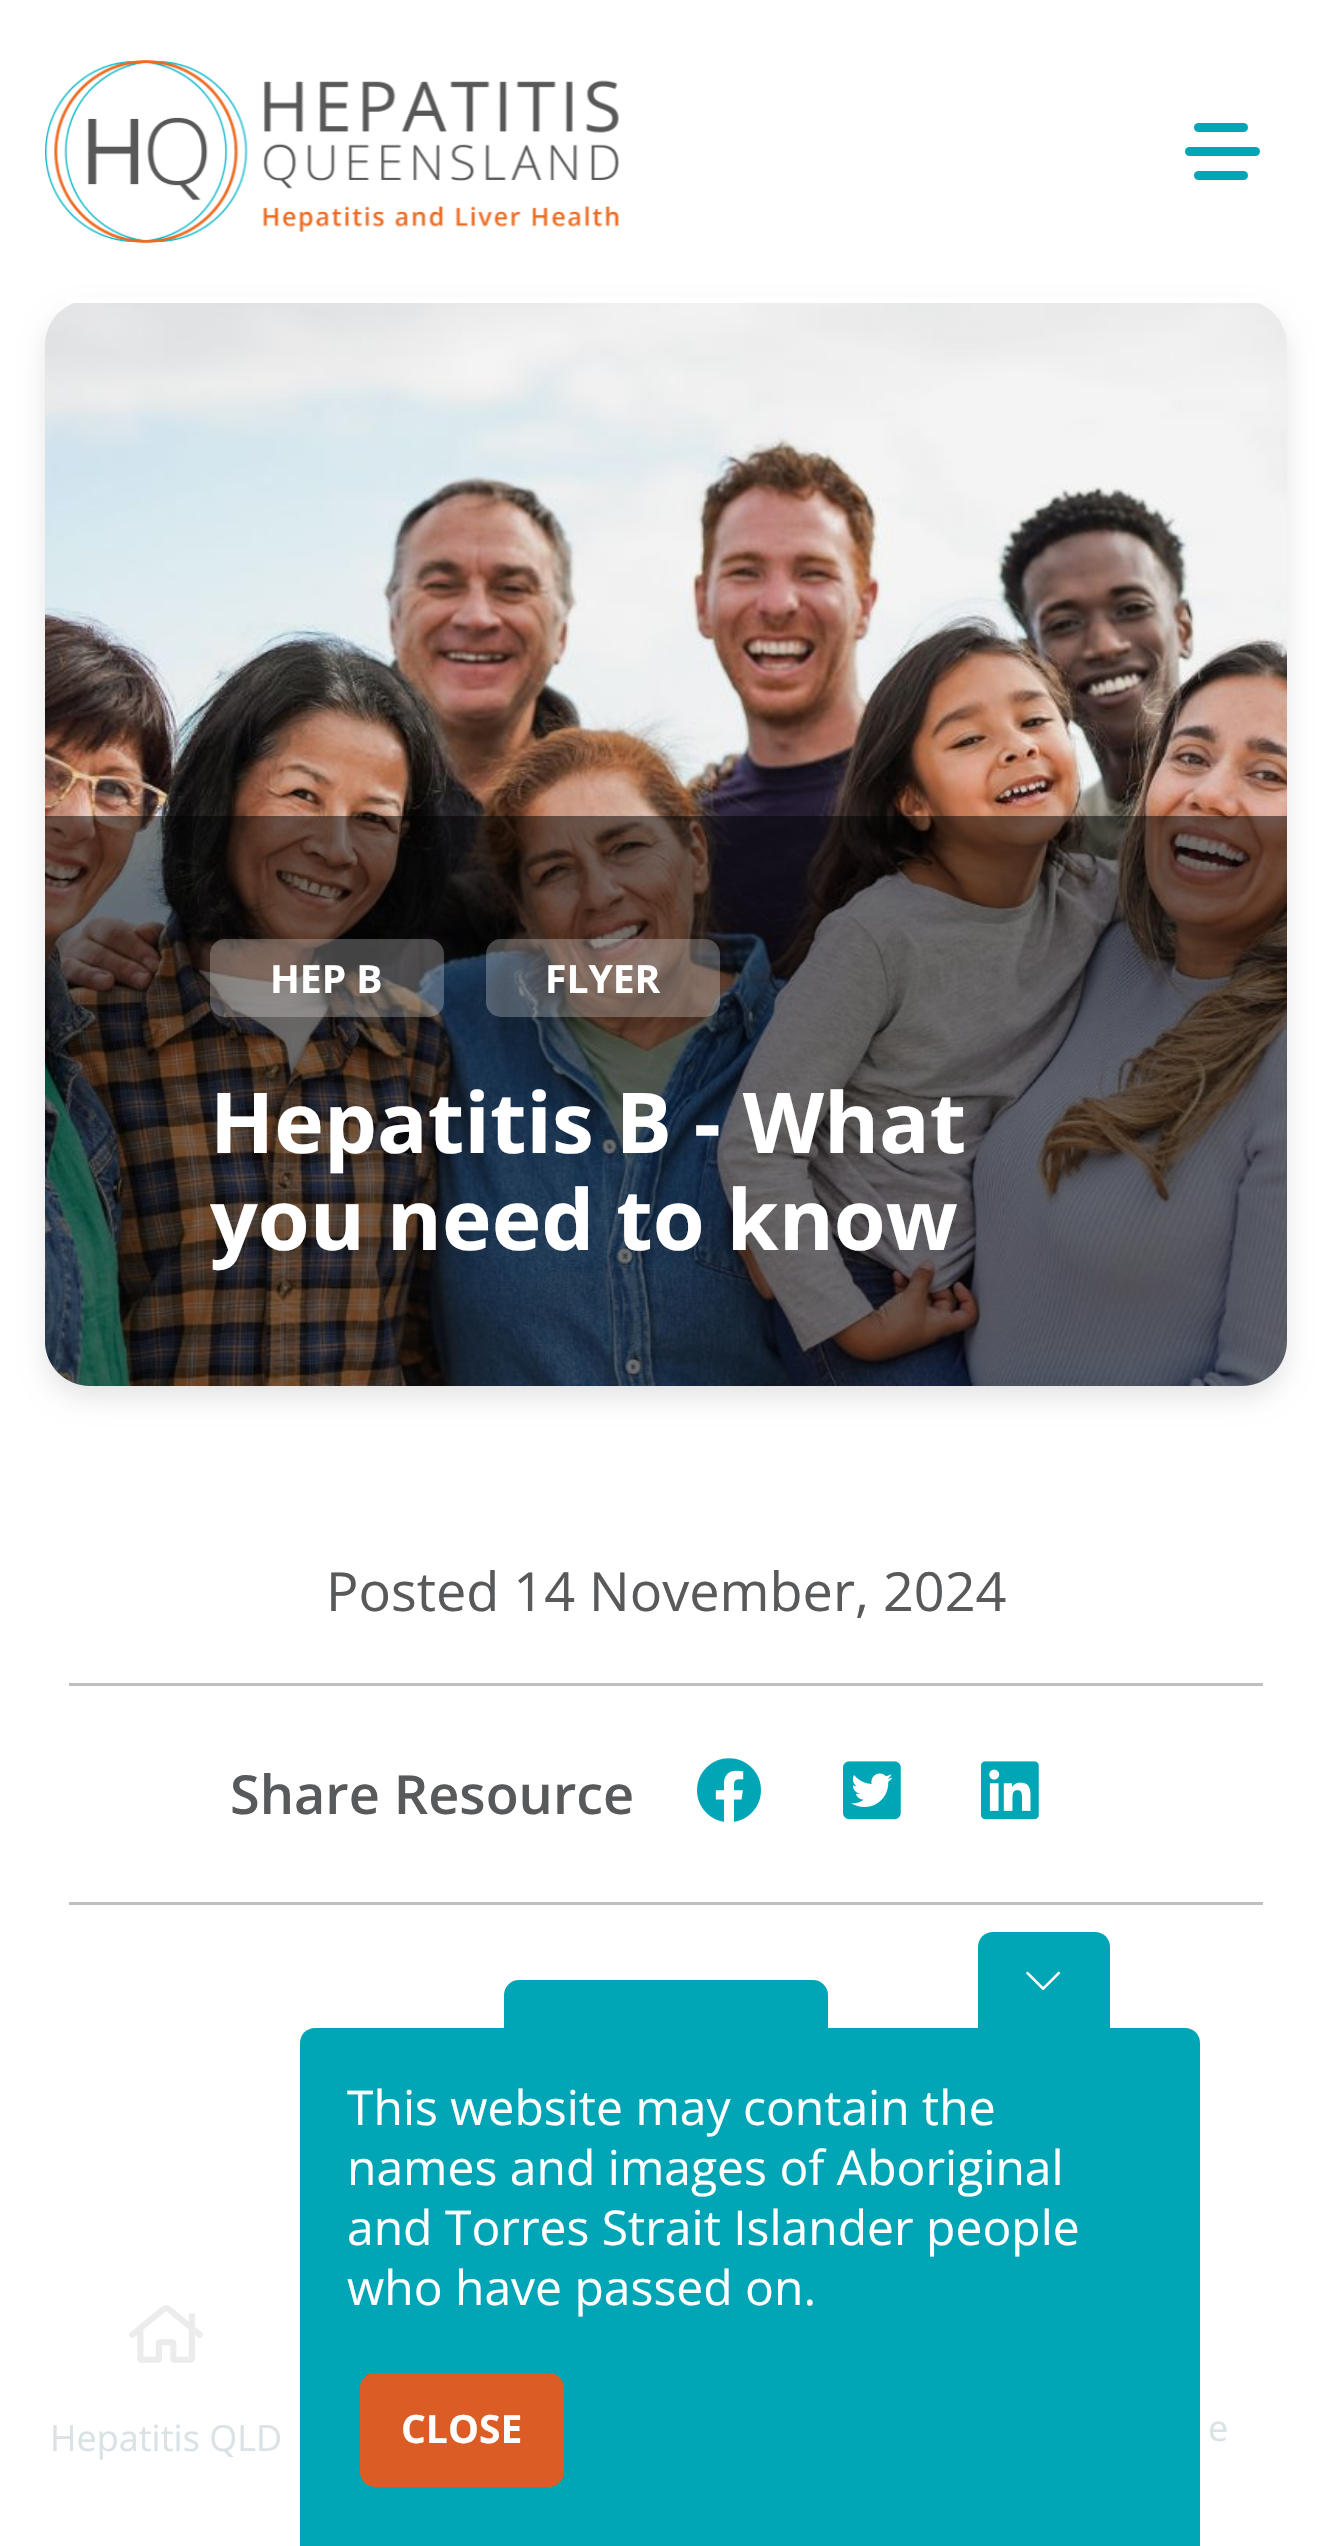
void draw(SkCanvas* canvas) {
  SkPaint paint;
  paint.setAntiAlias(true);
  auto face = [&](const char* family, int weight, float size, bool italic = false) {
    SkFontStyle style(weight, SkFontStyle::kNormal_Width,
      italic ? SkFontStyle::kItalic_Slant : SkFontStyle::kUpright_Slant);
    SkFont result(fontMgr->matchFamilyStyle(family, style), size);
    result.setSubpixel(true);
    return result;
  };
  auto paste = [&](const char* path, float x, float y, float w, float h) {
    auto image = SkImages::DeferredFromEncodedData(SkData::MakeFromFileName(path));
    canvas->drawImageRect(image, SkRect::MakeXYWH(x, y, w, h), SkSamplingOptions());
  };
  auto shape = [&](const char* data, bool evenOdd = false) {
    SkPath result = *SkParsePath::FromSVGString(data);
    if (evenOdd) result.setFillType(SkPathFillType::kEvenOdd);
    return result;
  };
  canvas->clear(0xffffffff);
  paint.setColor(0x1a000000);
  paint.setMaskFilter(SkMaskFilter::MakeBlur(kNormal_SkBlurStyle, 12));
  canvas->drawRoundRect(SkRect::MakeXYWH(45, 312, 1242, 1086), 45, 45, paint);
  paint.setMaskFilter(nullptr);
  paint.setColor(0xffffffff);
  canvas->drawRoundRect(SkRect::MakeXYWH(45, 300, 1242, 1086), 45, 45, paint);
  canvas->drawRect(SkRect::MakeXYWH(68, 297, 1197, 6), paint);
  paste("img/1.png", 45, 60, 574, 184);
  paint.setColor(0xff00a6b5);
  canvas->drawRoundRect(SkRect::MakeXYWH(1194, 123, 54, 9), 4.5f, 4.5f, paint);
  canvas->drawRoundRect(SkRect::MakeXYWH(1185, 147, 75, 9), 4.5f, 4.5f, paint);
  canvas->drawRoundRect(SkRect::MakeXYWH(1194, 171, 54, 9), 4.5f, 4.5f, paint);
  paste("img/2.png", 45, 303, 1242, 1083);
  paint.setColor(0x80000000);
  canvas->drawPath(shape("M45 816H1287V1341C1287 1366 1267 1386 1242 1386H90C65 1386 45 1366 45 1341Z"), paint);
  paint.setColor(0x40ffffff);
  canvas->drawRoundRect(SkRect::MakeXYWH(210, 939, 234, 78), 15, 15, paint);
  canvas->drawRoundRect(SkRect::MakeXYWH(486, 939, 234, 78), 15, 15, paint);
  paint.setColor(0xffbfbfbf);
  canvas->drawRect(SkRect::MakeXYWH(69, 1683, 1194, 3), paint);
  canvas->drawRect(SkRect::MakeXYWH(69, 1902, 1194, 3), paint);
  paste("img/3.png", 697, 1758, 64, 64);
  paste("img/4.png", 843, 1761, 58, 59);
  paste("img/5.png", 981, 1761, 58, 59);
  paint.setColor(0xff00a6b5);
  canvas->drawRoundRect(SkRect::MakeXYWH(507, 1983, 318, 105), 12, 12, paint);
  paint.setStroke(true);
  paint.setStrokeWidth(6);
  canvas->drawRoundRect(SkRect::MakeXYWH(507, 1983, 318, 105), 12, 12, paint);
  paint.setStroke(false);
  canvas->drawPath(shape("M315 2028H1185C1193.5 2028 1200 2034.5 1200 2043V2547H300V2043C300 2034.5 306.5 2028 315 2028Z"), paint);
  canvas->drawPath(shape("M993 1932H1095C1103.5 1932 1110 1938.5 1110 1947V2031H978V1947C978 1938.5 984.5 1932 993 1932Z"), paint);
  paste("img/6.png", 1026, 1971, 35, 20);
  paint.setColor(0xffdc5c26);
  canvas->drawRoundRect(SkRect::MakeXYWH(363, 2376, 198, 108), 12, 12, paint);
  paint.setStroke(true);
  canvas->drawRoundRect(SkRect::MakeXYWH(363, 2376, 198, 108), 12, 12, paint);
  paste("img/7.png", 129, 2305, 74, 58);
  auto f0 = face("Open Sans", 700, 39);
  paint.setStroke(false);
  paint.setColor(0xffffffff);
  canvas->drawString("HEP B", 270, 993, f0, paint);
  canvas->drawString("FLYER", 545, 993, f0, paint);
  auto f1 = face("Open Sans", 700, 84);
  canvas->drawString("Hepatitis B - What", 210, 1153, f1, paint);
  canvas->drawString("you need to know", 210, 1250, f1, paint);
  auto f2 = face("Open Sans", 400, 54);
  paint.setColor(0xff58595b);
  canvas->drawString("Posted 14 November, 2024", 326, 1611, f2, paint);
  auto f3 = face("Open Sans", 600, 54);
  canvas->drawString("Share Resource", 230, 1814, f3, paint);
  auto f4 = face("Open Sans", 400, 48);
  paint.setColor(0xffffffff);
  {
    const struct { const char* s; float x, y; } items[] = {
      {"This website may contain the", 347, 2125},
      {"names and images of Aboriginal", 347, 2185},
      {"and Torres Strait Islander people", 347, 2245},
      {"who have passed on.", 347, 2305},
    };
    for (auto [s, x, y] : items) {
      canvas->drawString(s, x, y, f4, paint);
    }
  }
  canvas->drawString("CLOSE", 401, 2443, f0, paint);
  auto f5 = face("Open Sans", 400, 36);
  paint.setColor(0xffdae2e5);
  canvas->drawString("Hepatitis QLD", 50, 2451, f5, paint);
  canvas->drawString("e", 1208, 2441, f5, paint);
}
